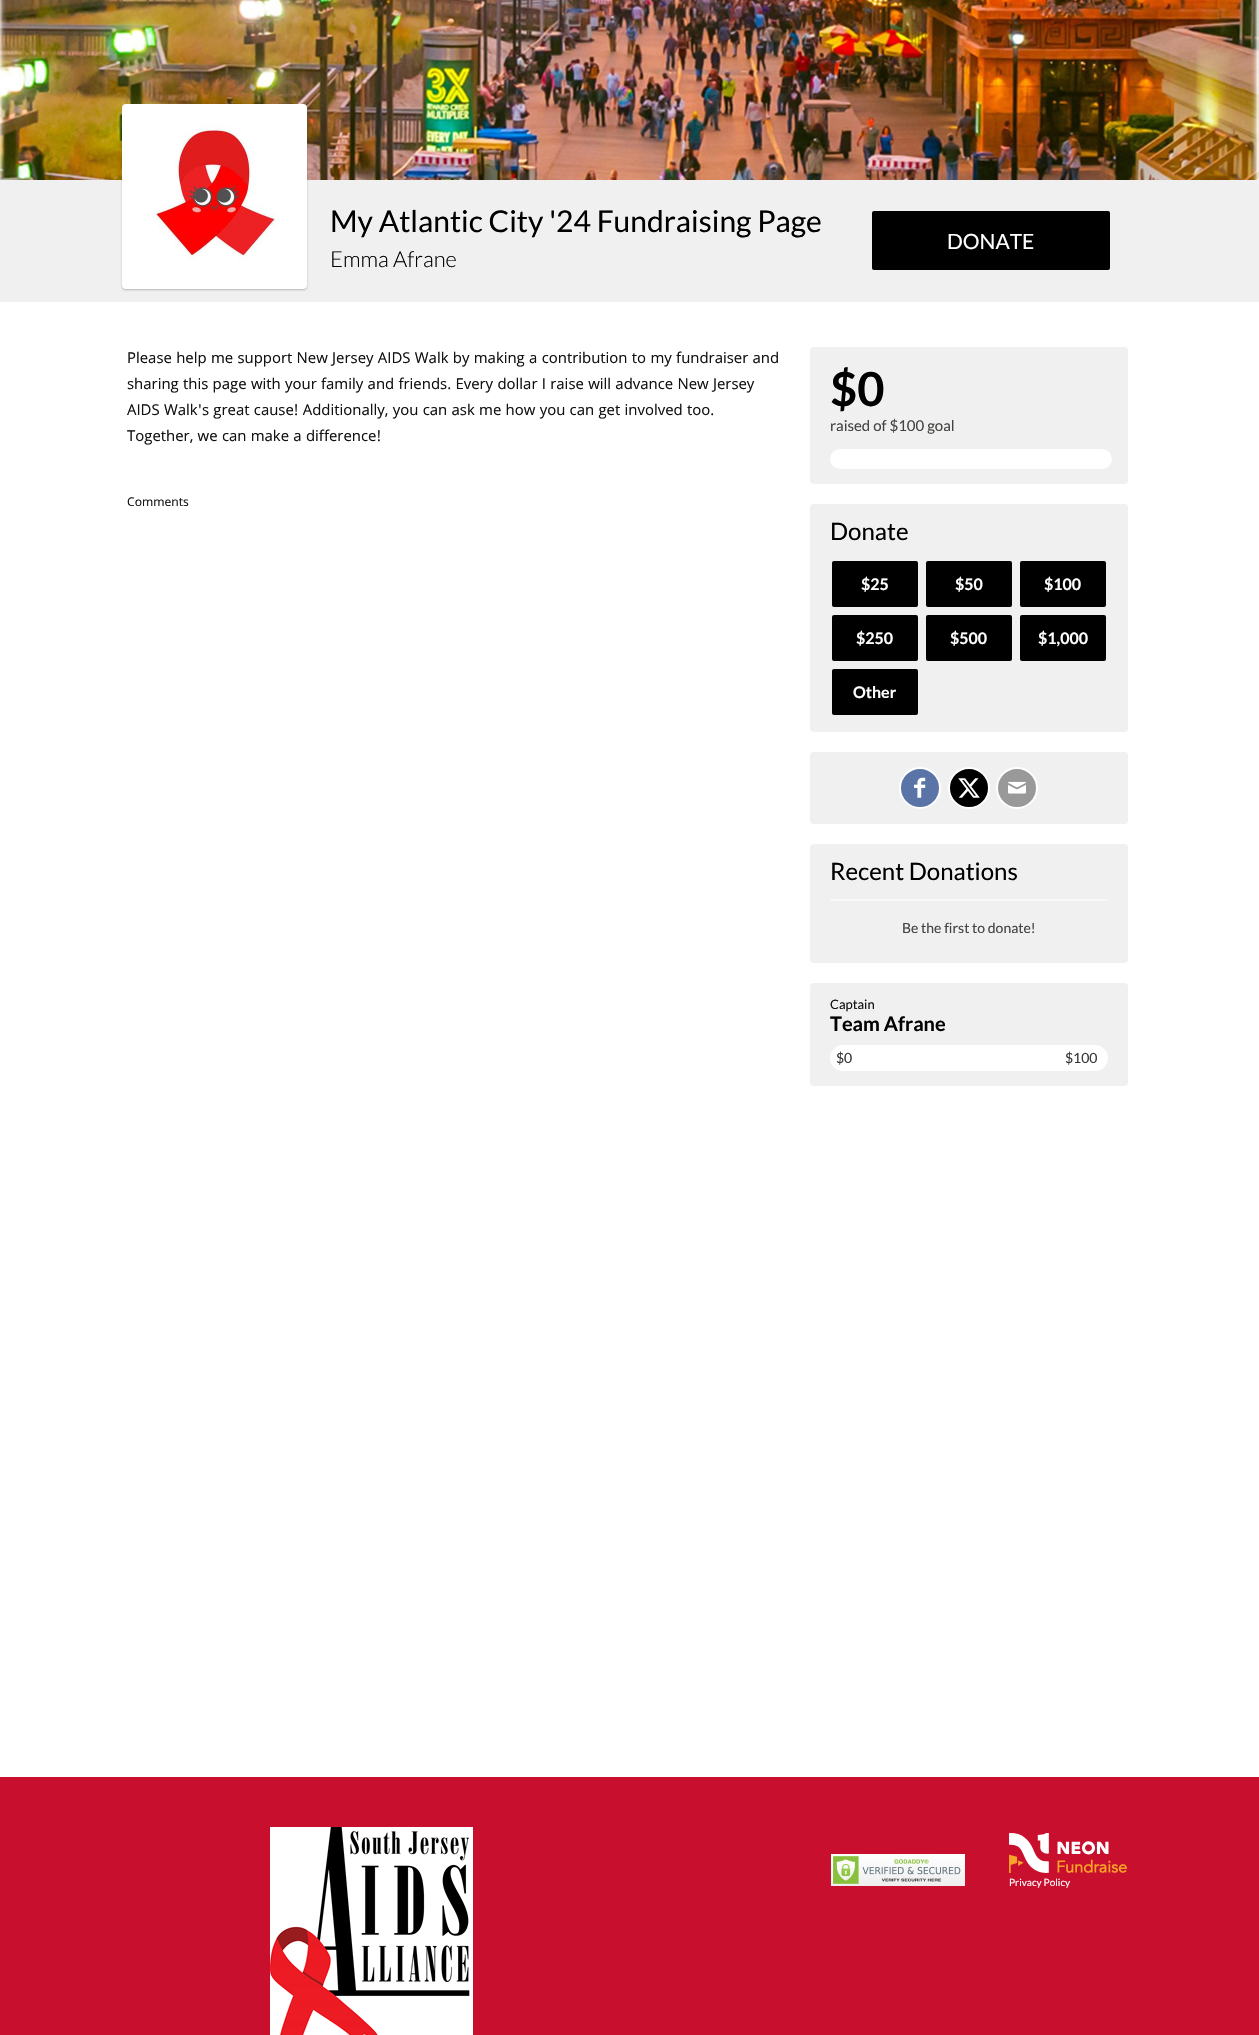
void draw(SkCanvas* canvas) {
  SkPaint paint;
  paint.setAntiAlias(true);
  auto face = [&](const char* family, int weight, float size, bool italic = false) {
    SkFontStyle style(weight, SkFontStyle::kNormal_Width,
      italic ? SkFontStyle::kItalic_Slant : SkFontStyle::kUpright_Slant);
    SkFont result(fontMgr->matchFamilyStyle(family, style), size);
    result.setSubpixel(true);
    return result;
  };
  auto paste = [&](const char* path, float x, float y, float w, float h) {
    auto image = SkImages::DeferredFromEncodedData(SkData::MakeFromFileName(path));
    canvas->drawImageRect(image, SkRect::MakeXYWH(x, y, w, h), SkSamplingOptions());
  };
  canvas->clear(0xffffffff);
  paste("img/1.png", 0, 0, 1259, 180);
  paint.setColor(0xfff0f0f0);
  canvas->drawRect(SkRect::MakeXYWH(0, 180, 1259, 122), paint);
  paint.setColor(0x40000000);
  paint.setMaskFilter(SkMaskFilter::MakeBlur(kNormal_SkBlurStyle, 1));
  canvas->drawRoundRect(SkRect::MakeXYWH(122, 105, 185, 185), 4, 4, paint);
  paint.setMaskFilter(nullptr);
  paint.setStroke(true);
  paint.setStrokeWidth(5);
  paint.setColor(0xffffffff);
  canvas->drawRoundRect(SkRect::MakeXYWH(124.5f, 106.5f, 180, 180), 1.5f, 1.5f, paint);
  paint.setStroke(false);
  canvas->drawRect(SkRect::MakeXYWH(127, 109, 175, 175), paint);
  paste("img/2.png", 151, 125, 128, 136);
  paint.setColor(0xff000000);
  canvas->drawRoundRect(SkRect::MakeXYWH(872, 211, 238, 59), 2, 2, paint);
  paint.setColor(0xfff0f0f0);
  canvas->drawRoundRect(SkRect::MakeXYWH(810, 347, 318, 137), 4, 4, paint);
  paint.setColor(0xffffffff);
  canvas->drawRoundRect(SkRect::MakeXYWH(830, 449, 282, 20), 10, 10, paint);
  paint.setColor(0xfff0f0f0);
  canvas->drawRoundRect(SkRect::MakeXYWH(810, 504, 318, 228), 4, 4, paint);
  paint.setColor(0xff000000);
  canvas->drawRoundRect(SkRect::MakeXYWH(832, 561, 86, 46), 2, 2, paint);
  canvas->drawRoundRect(SkRect::MakeXYWH(926, 561, 86, 46), 2, 2, paint);
  canvas->drawRoundRect(SkRect::MakeXYWH(1020, 561, 86, 46), 2, 2, paint);
  canvas->drawRoundRect(SkRect::MakeXYWH(832, 615, 86, 46), 2, 2, paint);
  canvas->drawRoundRect(SkRect::MakeXYWH(926, 615, 86, 46), 2, 2, paint);
  canvas->drawRoundRect(SkRect::MakeXYWH(1020, 615, 86, 46), 2, 2, paint);
  canvas->drawRoundRect(SkRect::MakeXYWH(832, 669, 86, 46), 2, 2, paint);
  paint.setColor(0xfff0f0f0);
  canvas->drawRoundRect(SkRect::MakeXYWH(810, 752, 318, 72), 4, 4, paint);
  paint.setColor(0xff5a74a8);
  canvas->drawCircle(920, 788, 20, paint);
  paint.setStroke(true);
  paint.setStrokeWidth(2);
  paint.setColor(0xffffffff);
  canvas->drawCircle(920, 788, 20, paint);
  paste("img/3.png", 914, 777, 12, 21);
  paint.setStroke(false);
  paint.setColor(0xff000000);
  canvas->drawCircle(969, 788, 20, paint);
  paint.setStroke(true);
  paint.setColor(0xffffffff);
  canvas->drawCircle(969, 788, 20, paint);
  paste("img/4.png", 958, 778, 22, 20);
  paint.setStroke(false);
  paint.setColor(0xff999999);
  canvas->drawCircle(1017, 788, 20, paint);
  paint.setStroke(true);
  paint.setColor(0xffffffff);
  canvas->drawCircle(1017, 788, 20, paint);
  paste("img/5.png", 1008, 781, 18, 13);
  paint.setStroke(false);
  paint.setColor(0xfff0f0f0);
  canvas->drawRoundRect(SkRect::MakeXYWH(810, 844, 318, 119), 4, 4, paint);
  paint.setColor(0xfff7f7f7);
  canvas->drawRect(SkRect::MakeXYWH(830, 899, 278, 2), paint);
  paint.setColor(0xfff0f0f0);
  canvas->drawRoundRect(SkRect::MakeXYWH(810, 983, 318, 103), 4, 4, paint);
  paint.setColor(0xffffffff);
  canvas->drawRoundRect(SkRect::MakeXYWH(830, 1045, 278, 26), 13, 13, paint);
  paint.setColor(0xffc8102e);
  canvas->drawRect(SkRect::MakeXYWH(0, 1777, 1259, 258), paint);
  paste("img/6.png", 270, 1827, 203, 208);
  paste("img/7.png", 831, 1854, 134, 32);
  paste("img/8.png", 1009, 1833, 118, 40);
  auto f0 = face("Lato", 400, 30);
  paint.setColor(0xff000000);
  canvas->drawString("My Atlantic City '24 Fundraising Page", 330, 232, f0, paint);
  auto f1 = face("Lato", 300, 22);
  canvas->drawString("Emma Afrane", 330, 267, f1, paint);
  auto f2 = face("Lato", 400, 21);
  paint.setColor(0xffffffff);
  canvas->drawString("DONATE", 947, 249, f2, paint);
  auto f3 = face("Khula", 400, 16);
  paint.setColor(0xff111111);
  {
    const struct { const char* s; float x, y; } items[] = {
      {"Please help me support New Jersey AIDS Walk by making a contribution to my fundraiser and", 127, 363},
      {"sharing this page with your family and friends. Every dollar I raise will advance New Jersey", 127, 389},
      {"AIDS Walk's great cause! Additionally, you can ask me how you can get involved too.", 127, 415},
      {"Together, we can make a difference!", 127, 441},
    };
    for (auto [s, x, y] : items) {
      canvas->drawString(s, x, y, f3, paint);
    }
  }
  auto f4 = face("Khula", 400, 13);
  canvas->drawString("Comments", 127, 506, f4, paint);
  auto f5 = face("Lato", 700, 47);
  paint.setColor(0xff000000);
  canvas->drawString("$0", 830, 406, f5, paint);
  auto f6 = face("Lato", 400, 15);
  paint.setColor(0xff454342);
  canvas->drawString("raised of $100 goal", 830, 431, f6, paint);
  auto f7 = face("Lato", 400, 24);
  paint.setColor(0xff000000);
  canvas->drawString("Donate", 830, 540, f7, paint);
  auto f8 = face("Lato", 700, 16);
  paint.setColor(0xffffffff);
  {
    const struct { const char* s; float x, y; } items[] = {
      {"$25", 861, 590},
      {"$50", 955, 590},
      {"$100", 1044, 590},
      {"$250", 856, 644},
      {"$500", 950, 644},
      {"$1,000", 1038, 644},
      {"Other", 853, 698},
    };
    for (auto [s, x, y] : items) {
      canvas->drawString(s, x, y, f8, paint);
    }
  }
  paint.setColor(0xff000000);
  canvas->drawString("Recent Donations", 830, 880, f7, paint);
  auto f9 = face("Lato", 400, 14);
  paint.setColor(0xff454342);
  canvas->drawString("Be the first to donate!", 902, 933, f9, paint);
  auto f10 = face("Lato", 400, 13);
  paint.setColor(0xff111111);
  canvas->drawString("Captain", 830, 1009, f10, paint);
  auto f11 = face("Lato", 700, 20);
  paint.setColor(0xff000000);
  canvas->drawString("Team Afrane", 830, 1031, f11, paint);
  paint.setColor(0xff363636);
  canvas->drawString("$0", 836, 1063, f9, paint);
  canvas->drawString("$100", 1065, 1063, f9, paint);
  auto f12 = face("Lato", 400, 10);
  paint.setColor(0xffffffff);
  canvas->drawString("Privacy Policy", 1009, 1886, f12, paint);
}
